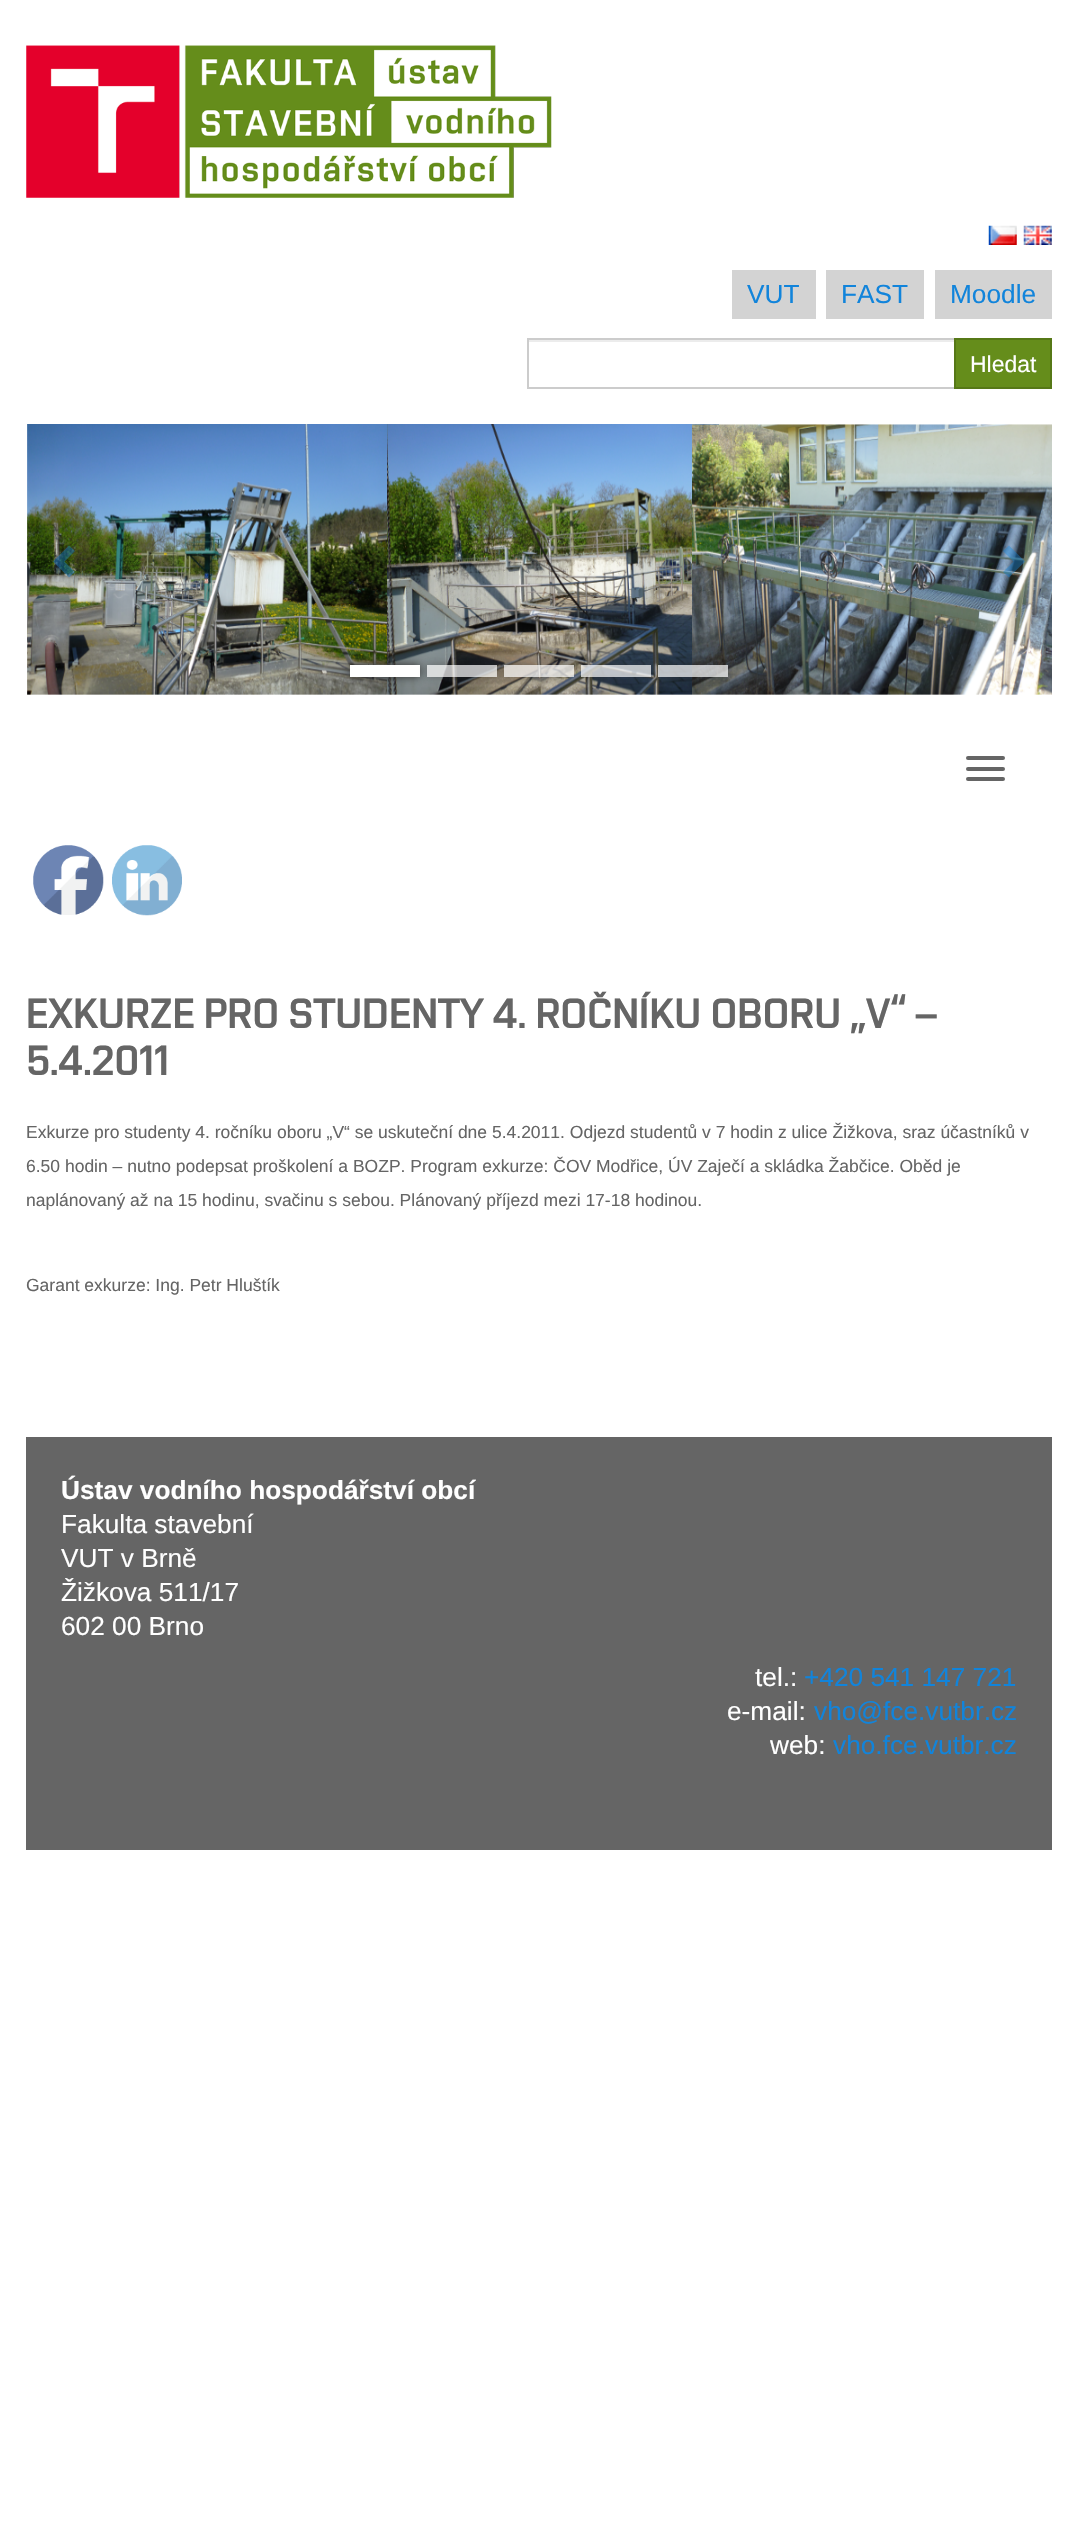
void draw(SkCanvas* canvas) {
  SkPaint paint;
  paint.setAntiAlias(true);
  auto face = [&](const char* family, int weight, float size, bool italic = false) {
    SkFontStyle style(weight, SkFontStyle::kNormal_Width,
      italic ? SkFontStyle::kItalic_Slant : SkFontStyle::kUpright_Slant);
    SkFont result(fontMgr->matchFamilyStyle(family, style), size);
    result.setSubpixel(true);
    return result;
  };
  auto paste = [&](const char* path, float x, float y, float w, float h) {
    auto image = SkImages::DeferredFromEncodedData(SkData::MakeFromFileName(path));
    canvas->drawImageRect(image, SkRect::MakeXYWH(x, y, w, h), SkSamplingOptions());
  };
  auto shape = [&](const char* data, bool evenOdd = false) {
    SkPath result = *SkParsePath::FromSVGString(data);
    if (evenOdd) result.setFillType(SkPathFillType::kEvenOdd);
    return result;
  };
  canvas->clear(0xffffffff);
  paste("img/1.png", 26, 45, 526, 153);
  paste("img/2.png", 988, 225, 29, 20);
  paste("img/3.png", 1023, 225, 29, 20);
  {
    const struct { float x, y, w, h; SkColor color; } items[] = {
      {732, 270, 84, 49, 0xffd3d3d3},
      {826, 270, 98, 49, 0xffd3d3d3},
      {935, 270, 117, 49, 0xffd3d3d3},
      {529, 340, 425, 2, 0xffececec},
    };
    for (auto [x, y, w, h, color] : items) {
      paint.setColor(color);
      canvas->drawRect(SkRect::MakeXYWH(x, y, w, h), paint);
    }
  }
  paint.setStroke(true);
  paint.setStrokeWidth(2);
  paint.setColor(0xffcccccc);
  canvas->drawRect(SkRect::MakeXYWH(528, 339, 427, 49), paint);
  paint.setStroke(false);
  paint.setColor(0xff658d1b);
  canvas->drawRect(SkRect::MakeXYWH(955, 339, 96, 49), paint);
  paint.setStroke(true);
  paint.setColor(0xff567817);
  canvas->drawRect(SkRect::MakeXYWH(955, 339, 96, 49), paint);
  paste("img/4.png", 27, 424, 1025, 271);
  paint.setStroke(false);
  paint.setColor(0x661184db);
  canvas->drawPath(shape("M75 551L64.5 561.5L75 572L69 577.5L53 561.5L69 545.5Z"), paint);
  canvas->drawPath(shape("M1025 561.5L1009 577.5L1003 572L1013.5 561.5L1003 551L1009 545.5Z"), paint);
  paint.setColor(0xff323232);
  paint.setMaskFilter(SkMaskFilter::MakeBlur(kNormal_SkBlurStyle, 4.5f));
  canvas->drawRect(SkRect::MakeXYWH(350, 665, 70, 12), paint);
  paint.setMaskFilter(nullptr);
  paint.setColor(0xffffffff);
  canvas->drawRect(SkRect::MakeXYWH(350, 665, 70, 12), paint);
  canvas->save();
  canvas->clipPath(shape("M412 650H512V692H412ZM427 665H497V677H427Z", true), true);
  paint.setColor(0x59323232);
  paint.setMaskFilter(SkMaskFilter::MakeBlur(kNormal_SkBlurStyle, 4.5f));
  canvas->drawRect(SkRect::MakeXYWH(427, 665, 70, 12), paint);
  paint.setMaskFilter(nullptr);
  canvas->restore();
  paint.setColor(0xb3ffffff);
  canvas->drawRect(SkRect::MakeXYWH(427, 665, 70, 12), paint);
  canvas->save();
  canvas->clipPath(shape("M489 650H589V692H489ZM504 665H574V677H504Z", true), true);
  paint.setColor(0x59323232);
  paint.setMaskFilter(SkMaskFilter::MakeBlur(kNormal_SkBlurStyle, 4.5f));
  canvas->drawRect(SkRect::MakeXYWH(504, 665, 70, 12), paint);
  paint.setMaskFilter(nullptr);
  canvas->restore();
  paint.setColor(0xb3ffffff);
  canvas->drawRect(SkRect::MakeXYWH(504, 665, 70, 12), paint);
  canvas->save();
  canvas->clipPath(shape("M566 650H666V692H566ZM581 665H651V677H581Z", true), true);
  paint.setColor(0x59323232);
  paint.setMaskFilter(SkMaskFilter::MakeBlur(kNormal_SkBlurStyle, 4.5f));
  canvas->drawRect(SkRect::MakeXYWH(581, 665, 70, 12), paint);
  paint.setMaskFilter(nullptr);
  canvas->restore();
  paint.setColor(0xb3ffffff);
  canvas->drawRect(SkRect::MakeXYWH(581, 665, 70, 12), paint);
  canvas->save();
  canvas->clipPath(shape("M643 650H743V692H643ZM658 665H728V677H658Z", true), true);
  paint.setColor(0x59323232);
  paint.setMaskFilter(SkMaskFilter::MakeBlur(kNormal_SkBlurStyle, 4.5f));
  canvas->drawRect(SkRect::MakeXYWH(658, 665, 70, 12), paint);
  paint.setMaskFilter(nullptr);
  canvas->restore();
  paint.setColor(0xb3ffffff);
  canvas->drawRect(SkRect::MakeXYWH(658, 665, 70, 12), paint);
  paint.setColor(0xff656565);
  canvas->drawRoundRect(SkRect::MakeXYWH(966, 756, 39, 4), 2, 2, paint);
  canvas->drawRoundRect(SkRect::MakeXYWH(966, 767, 39, 4), 2, 2, paint);
  canvas->drawRoundRect(SkRect::MakeXYWH(966, 777, 39, 4), 2, 2, paint);
  paste("img/5.png", 33, 845, 71, 70);
  paste("img/6.png", 112, 845, 70, 71);
  canvas->drawRect(SkRect::MakeXYWH(26, 1437, 1026, 413), paint);
  auto f0 = face("Liberation Sans", 400, 26.25f);
  paint.setColor(0xff1184db);
  {
    const struct { const char* s; float x, y; } items[] = {
      {"VUT", 747, 303},
      {"FAST", 841, 303},
      {"Moodle", 950, 303},
    };
    for (auto [s, x, y] : items) {
      canvas->drawString(s, x, y, f0, paint);
    }
  }
  auto f1 = face("Liberation Sans", 400, 23);
  paint.setColor(0xffffffff);
  canvas->drawString("Hledat", 970, 372, f1, paint);
  auto f2 = face("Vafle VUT", 400, 42);
  paint.setColor(0xff656565);
  canvas->drawString("EXKURZE PRO STUDENTY 4. ROČNÍKU OBORU „V“ –", 26, 1028, f2, paint);
  canvas->drawString("5.4.2011", 26, 1075, f2, paint);
  auto f3 = face("Liberation Sans", 400, 17.5f);
  {
    const struct { const char* s; float x, y; } items[] = {
      {"Exkurze pro studenty 4. ročníku oboru „V“ se uskuteční dne 5.4.2011. Odjezd studentů v 7 hodin z ulice Žižkova, sraz účastníků v", 26, 1138},
      {"6.50 hodin – nutno podepsat proškolení a BOZP. Program exkurze: ČOV Modřice, ÚV Zaječí a skládka Žabčice. Oběd je", 26, 1172},
      {"naplánovaný až na 15 hodinu, svačinu s sebou. Plánovaný příjezd mezi 17-18 hodinou.", 26, 1206},
      {"Garant exkurze: Ing. Petr Hluštík", 26, 1291},
    };
    for (auto [s, x, y] : items) {
      canvas->drawString(s, x, y, f3, paint);
    }
  }
  auto f4 = face("Liberation Sans", 700, 26.25f);
  paint.setColor(0xffffffff);
  canvas->drawString("Ústav vodního hospodářství obcí", 61, 1499, f4, paint);
  {
    const struct { const char* s; float x, y; } items[] = {
      {"Fakulta stavební", 61, 1533},
      {"VUT v Brně", 61, 1567},
      {"Žižkova 511/17", 61, 1601},
      {"602 00 Brno", 61, 1635},
      {"tel.:", 755, 1686},
    };
    for (auto [s, x, y] : items) {
      canvas->drawString(s, x, y, f0, paint);
    }
  }
  paint.setColor(0xff1184db);
  canvas->drawString("+420 541 147 721", 804, 1686, f0, paint);
  paint.setColor(0xffffffff);
  canvas->drawString("e-mail:", 727, 1720, f0, paint);
  paint.setColor(0xff1184db);
  canvas->drawString("vho@fce.vutbr.cz", 814, 1720, f0, paint);
  paint.setColor(0xffffffff);
  canvas->drawString("web:", 770, 1754, f0, paint);
  paint.setColor(0xff1184db);
  canvas->drawString("vho.fce.vutbr.cz", 833, 1754, f0, paint);
}
